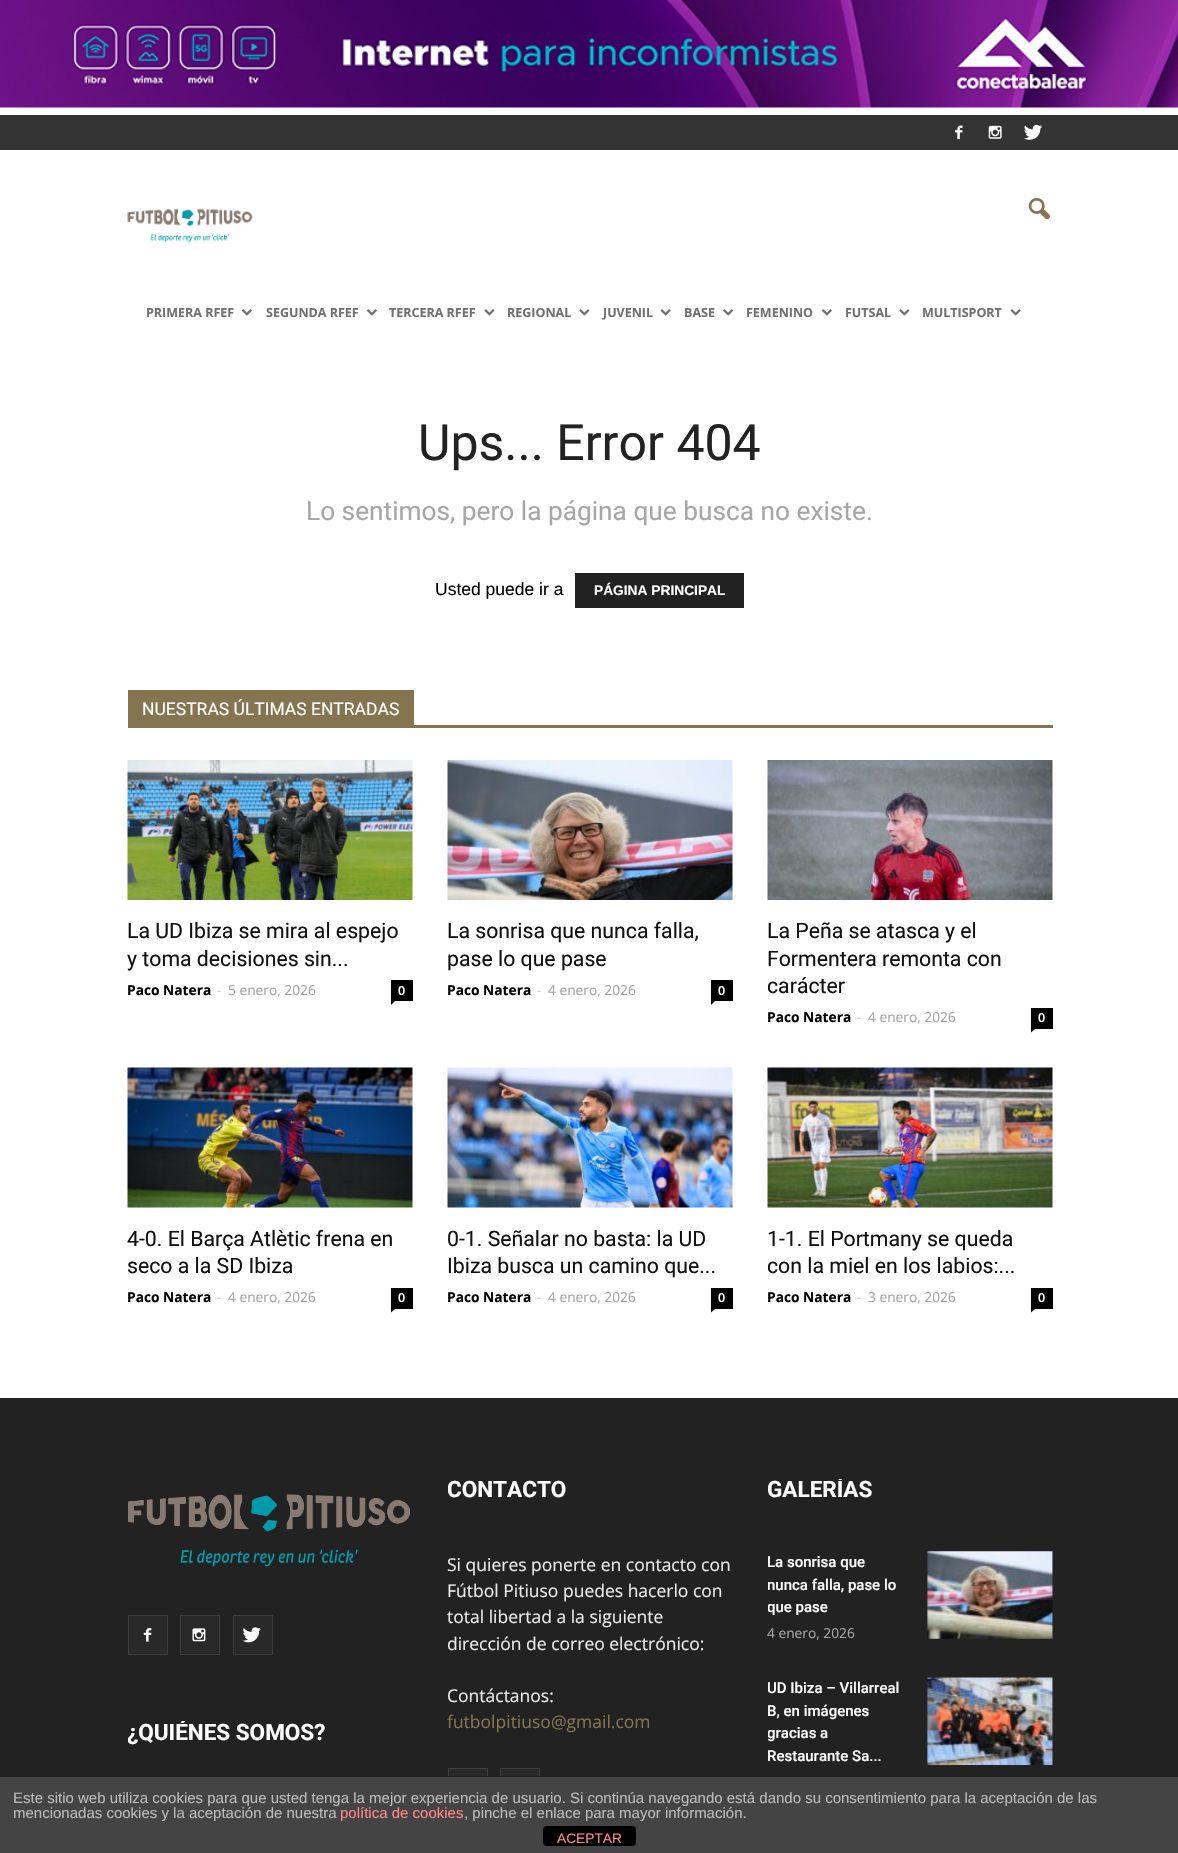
void draw(SkCanvas* canvas) {
  SkPaint paint;
  paint.setAntiAlias(true);
  auto face = [&](const char* family, int weight, float size, bool italic = false) {
    SkFontStyle style(weight, SkFontStyle::kNormal_Width,
      italic ? SkFontStyle::kItalic_Slant : SkFontStyle::kUpright_Slant);
    SkFont result(fontMgr->matchFamilyStyle(family, style), size);
    result.setSubpixel(true);
    return result;
  };
  auto paste = [&](const char* path, float x, float y, float w, float h) {
    auto image = SkImages::DeferredFromEncodedData(SkData::MakeFromFileName(path));
    canvas->drawImageRect(image, SkRect::MakeXYWH(x, y, w, h), SkSamplingOptions());
  };
  auto shape = [&](const char* data, bool evenOdd = false) {
    SkPath result = *SkParsePath::FromSVGString(data);
    if (evenOdd) result.setFillType(SkPathFillType::kEvenOdd);
    return result;
  };
  canvas->clear(0xffffffff);
  paste("img/1.png", 0, 0, 1178, 108);
  paint.setColor(0xff333333);
  canvas->drawRect(SkRect::MakeXYWH(0, 115, 1178, 35), paint);
  paste("img/2.png", 955, 125, 8, 15);
  paste("img/3.png", 988, 125, 14, 14);
  paste("img/4.png", 1024, 124, 18, 16);
  paste("img/5.png", 1028, 197, 22, 23);
  paste("img/6.png", 127, 208, 126, 35);
  paste("img/7.png", 241, 309, 11, 7);
  paste("img/7.png", 366, 309, 11, 7);
  paste("img/8.png", 484, 309, 11, 7);
  paste("img/8.png", 579, 309, 11, 7);
  paste("img/9.png", 660, 309, 11, 7);
  paste("img/10.png", 723, 309, 11, 7);
  paste("img/7.png", 821, 309, 11, 7);
  paste("img/8.png", 899, 309, 11, 7);
  paste("img/9.png", 1010, 309, 11, 7);
  {
    const struct { float x, y, w, h; SkColor color; } items[] = {
      {575, 573, 169, 35, 0xff222222},
      {128, 725, 925, 3, 0xff857450},
      {128, 690, 286, 35, 0xff857450},
    };
    for (auto [x, y, w, h, color] : items) {
      paint.setColor(color);
      canvas->drawRect(SkRect::MakeXYWH(x, y, w, h), paint);
    }
  }
  paste("img/11.png", 127, 760, 286, 140);
  paint.setColor(0xff000000);
  canvas->drawRect(SkRect::MakeXYWH(391, 980, 22, 21), paint);
  canvas->drawPath(shape("M391 1001H395L391 1005Z"), paint);
  paste("img/12.png", 447, 760, 286, 140);
  canvas->drawRect(SkRect::MakeXYWH(711, 980, 22, 21), paint);
  canvas->drawPath(shape("M711 1001H715L711 1005Z"), paint);
  paste("img/13.png", 767, 760, 286, 140);
  canvas->drawRect(SkRect::MakeXYWH(1031, 1008, 22, 21), paint);
  canvas->drawPath(shape("M1031 1029H1035L1031 1032.5Z"), paint);
  paste("img/14.png", 127, 1067, 286, 141);
  canvas->drawRect(SkRect::MakeXYWH(391, 1288, 22, 21), paint);
  canvas->drawPath(shape("M391 1309H395L391 1312.5Z"), paint);
  paste("img/15.png", 447, 1067, 286, 141);
  canvas->drawRect(SkRect::MakeXYWH(711, 1288, 22, 21), paint);
  canvas->drawPath(shape("M711 1309H715L711 1312.5Z"), paint);
  paste("img/16.png", 767, 1067, 286, 141);
  canvas->drawRect(SkRect::MakeXYWH(1031, 1288, 22, 21), paint);
  canvas->drawPath(shape("M1031 1309H1035L1031 1312.5Z"), paint);
  paint.setColor(0xff222222);
  canvas->drawRect(SkRect::MakeXYWH(0, 1398, 1178, 378), paint);
  paste("img/17.png", 128, 1494, 282, 73);
  paint.setColor(0xff292929);
  canvas->drawRect(SkRect::MakeXYWH(128.5f, 1615.5f, 39, 39), paint);
  paint.setStroke(true);
  paint.setStrokeWidth(1);
  paint.setColor(0xff3e3e3e);
  canvas->drawRect(SkRect::MakeXYWH(128.5f, 1615.5f, 39, 39), paint);
  paste("img/18.png", 143, 1628, 9, 14);
  paint.setStroke(false);
  paint.setColor(0xff292929);
  canvas->drawRect(SkRect::MakeXYWH(180.5f, 1615.5f, 39, 39), paint);
  paint.setStroke(true);
  paint.setColor(0xff3e3e3e);
  canvas->drawRect(SkRect::MakeXYWH(180.5f, 1615.5f, 39, 39), paint);
  paste("img/19.png", 192, 1628, 14, 14);
  paint.setStroke(false);
  paint.setColor(0xff292929);
  canvas->drawRect(SkRect::MakeXYWH(233.5f, 1615.5f, 39, 39), paint);
  paint.setStroke(true);
  paint.setColor(0xff3e3e3e);
  canvas->drawRect(SkRect::MakeXYWH(233.5f, 1615.5f, 39, 39), paint);
  paste("img/20.png", 242, 1627, 19, 16);
  paint.setStroke(false);
  paint.setColor(0xff292929);
  canvas->drawRect(SkRect::MakeXYWH(449, 1769, 38, 7), paint);
  paint.setStroke(true);
  paint.setColor(0xff3e3e3e);
  canvas->drawRect(SkRect::MakeXYWH(448.5f, 1768.5f, 39, 39), paint);
  paint.setStroke(false);
  paint.setColor(0xff292929);
  canvas->drawRect(SkRect::MakeXYWH(501, 1769, 38, 7), paint);
  paint.setStroke(true);
  paint.setColor(0xff3e3e3e);
  canvas->drawRect(SkRect::MakeXYWH(500.5f, 1768.5f, 39, 39), paint);
  paste("img/21.png", 927, 1551, 126, 88);
  paste("img/22.png", 927, 1677, 126, 88);
  paint.setStroke(false);
  paint.setColor(0xff444444);
  canvas->drawRect(SkRect::MakeXYWH(0, 1777, 1178, 76), paint);
  paint.setColor(0xff222222);
  canvas->drawRect(SkRect::MakeXYWH(0, 1776, 1178, 1), paint);
  paint.setColor(0xff000000);
  canvas->drawRoundRect(SkRect::MakeXYWH(543, 1826, 93, 20), 4, 4, paint);
  auto f0 = face("Open Sans", 700, 12.5f);
  paint.setColor(0xff717171);
  {
    const struct { const char* s; float x, y; } items[] = {
      {"PRIMERA RFEF", 146, 317},
      {"SEGUNDA RFEF", 266, 317},
      {"TERCERA RFEF", 389, 317},
      {"REGIONAL", 507, 317},
      {"JUVENIL", 603, 317},
      {"BASE", 684, 317},
      {"FEMENINO", 746, 317},
      {"FUTSAL", 845, 317},
      {"MULTISPORT", 922, 317},
    };
    for (auto [s, x, y] : items) {
      canvas->drawString(s, x, y, f0, paint);
    }
  }
  auto f1 = face("Roboto", 400, 50);
  paint.setColor(0xff222222);
  canvas->drawString("Ups... Error 404", 418, 460, f1, paint);
  auto f2 = face("Roboto", 400, 26.25f);
  paint.setColor(0xffa6a6a6);
  canvas->drawString("Lo sentimos, pero la página que busca no existe.", 306, 520, f2, paint);
  auto f3 = face("Liberation Sans", 400, 17.5f);
  paint.setColor(0xff000000);
  canvas->drawString("Usted puede ir a", 435, 595, f3, paint);
  auto f4 = face("Liberation Sans", 700, 13.75f);
  paint.setColor(0xffffffff);
  canvas->drawString("PÁGINA PRINCIPAL", 594, 595, f4, paint);
  auto f5 = face("Roboto", 400, 17.5f);
  canvas->drawString("NUESTRAS ÚLTIMAS ENTRADAS", 142, 715, f5, paint);
  auto f6 = face("Roboto", 400, 21.25f);
  paint.setColor(0xff111111);
  canvas->drawString("La UD Ibiza se mira al espejo", 127, 938, f6, paint);
  canvas->drawString("y toma decisiones sin...", 127, 966, f6, paint);
  auto f7 = face("Open Sans", 700, 13.75f);
  paint.setColor(0xff000000);
  canvas->drawString("Paco Natera", 127, 995, f7, paint);
  auto f8 = face("Open Sans", 400, 13.75f);
  paint.setColor(0xffcccccc);
  canvas->drawString("-", 217, 995, f8, paint);
  paint.setColor(0xffa6a6a6);
  canvas->drawString("5 enero, 2026", 228, 995, f8, paint);
  auto f9 = face("Open Sans", 600, 12.5f);
  paint.setColor(0xffffffff);
  canvas->drawString("0", 398, 995, f9, paint);
  paint.setColor(0xff111111);
  canvas->drawString("La sonrisa que nunca falla,", 447, 938, f6, paint);
  canvas->drawString("pase lo que pase", 447, 966, f6, paint);
  paint.setColor(0xff000000);
  canvas->drawString("Paco Natera", 447, 995, f7, paint);
  paint.setColor(0xffcccccc);
  canvas->drawString("-", 537, 995, f8, paint);
  paint.setColor(0xffa6a6a6);
  canvas->drawString("4 enero, 2026", 548, 995, f8, paint);
  paint.setColor(0xffffffff);
  canvas->drawString("0", 718, 995, f9, paint);
  paint.setColor(0xff111111);
  {
    const struct { const char* s; float x, y; } items[] = {
      {"La Peña se atasca y el", 767, 938},
      {"Formentera remonta con", 767, 966},
      {"carácter", 767, 993},
    };
    for (auto [s, x, y] : items) {
      canvas->drawString(s, x, y, f6, paint);
    }
  }
  paint.setColor(0xff000000);
  canvas->drawString("Paco Natera", 767, 1022, f7, paint);
  paint.setColor(0xffcccccc);
  canvas->drawString("-", 857, 1022, f8, paint);
  paint.setColor(0xffa6a6a6);
  canvas->drawString("4 enero, 2026", 868, 1022, f8, paint);
  paint.setColor(0xffffffff);
  canvas->drawString("0", 1038, 1022, f9, paint);
  paint.setColor(0xff111111);
  canvas->drawString("4-0. El Barça Atlètic frena en", 127, 1246, f6, paint);
  canvas->drawString("seco a la SD Ibiza", 127, 1273, f6, paint);
  paint.setColor(0xff000000);
  canvas->drawString("Paco Natera", 127, 1302, f7, paint);
  paint.setColor(0xffcccccc);
  canvas->drawString("-", 217, 1302, f8, paint);
  paint.setColor(0xffa6a6a6);
  canvas->drawString("4 enero, 2026", 228, 1302, f8, paint);
  paint.setColor(0xffffffff);
  canvas->drawString("0", 398, 1302, f9, paint);
  paint.setColor(0xff111111);
  canvas->drawString("0-1. Señalar no basta: la UD", 447, 1246, f6, paint);
  canvas->drawString("Ibiza busca un camino que...", 447, 1273, f6, paint);
  paint.setColor(0xff000000);
  canvas->drawString("Paco Natera", 447, 1302, f7, paint);
  paint.setColor(0xffcccccc);
  canvas->drawString("-", 537, 1302, f8, paint);
  paint.setColor(0xffa6a6a6);
  canvas->drawString("4 enero, 2026", 548, 1302, f8, paint);
  paint.setColor(0xffffffff);
  canvas->drawString("0", 718, 1302, f9, paint);
  paint.setColor(0xff111111);
  canvas->drawString("1-1. El Portmany se queda", 767, 1246, f6, paint);
  canvas->drawString("con la miel en los labios:...", 767, 1273, f6, paint);
  paint.setColor(0xff000000);
  canvas->drawString("Paco Natera", 767, 1302, f7, paint);
  paint.setColor(0xffcccccc);
  canvas->drawString("-", 857, 1302, f8, paint);
  paint.setColor(0xffa6a6a6);
  canvas->drawString("3 enero, 2026", 868, 1302, f8, paint);
  paint.setColor(0xffffffff);
  canvas->drawString("0", 1038, 1302, f9, paint);
  canvas->save();
  canvas->clipRect(SkRect::MakeXYWH(128, 1721, 285, 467));
  auto f10 = face("Roboto", 700, 22.5f);
  canvas->drawString("¿QUIÉNES SOMOS?", 127, 1740, f10, paint);
  canvas->restore();
  canvas->save();
  canvas->clipRect(SkRect::MakeXYWH(448, 1479, 285, 335));
  canvas->drawString("CONTACTO", 447, 1497, f10, paint);
  canvas->restore();
  auto f11 = face("Open Sans", 400, 17.5f);
  paint.setColor(0xffeaeaea);
  {
    const struct { const char* s; float x, y; } items[] = {
      {"Si quieres ponerte en contacto con", 447, 1571},
      {"Fútbol Pitiuso puedes hacerlo con", 447, 1597},
      {"total libertad a la siguiente", 447, 1623},
      {"dirección de correo electrónico:", 447, 1650},
      {"Contáctanos:", 447, 1702},
    };
    for (auto [s, x, y] : items) {
      canvas->drawString(s, x, y, f11, paint);
    }
  }
  paint.setColor(0xff857450);
  canvas->drawString("futbolpitiuso@gmail.com", 447, 1728, f11, paint);
  canvas->save();
  canvas->clipRect(SkRect::MakeXYWH(768, 1479, 285, 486));
  paint.setColor(0xffffffff);
  canvas->drawString("GALERÍAS", 767, 1497, f10, paint);
  canvas->restore();
  auto f12 = face("Roboto", 500, 15);
  canvas->drawString("La sonrisa que", 767, 1567, f12, paint);
  canvas->save();
  canvas->clipRect(SkRect::MakeXYWH(768, 1479, 285, 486));
  canvas->drawString("nunca falla, pase lo", 767, 1590, f12, paint);
  canvas->drawString("que pase", 767, 1612, f12, paint);
  canvas->restore();
  paint.setColor(0xffa6a6a6);
  canvas->drawString("4 enero, 2026", 767, 1638, f8, paint);
  canvas->save();
  canvas->clipRect(SkRect::MakeXYWH(768, 1479, 285, 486));
  paint.setColor(0xffffffff);
  canvas->drawString("UD Ibiza – Villarreal", 767, 1693, f12, paint);
  canvas->restore();
  canvas->drawString("B, en imágenes", 767, 1716, f12, paint);
  canvas->save();
  canvas->clipRect(SkRect::MakeXYWH(768, 1479, 285, 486));
  canvas->drawString("gracias a", 767, 1738, f12, paint);
  canvas->restore();
  canvas->drawString("Restaurante Sa...", 767, 1761, f12, paint);
  auto f13 = face("Liberation Sans", 400, 15);
  paint.setColor(0xffbbbbbb);
  canvas->drawString("Este sitio web utiliza cookies para que usted tenga la mejor experiencia de usuario. Si continúa navegando está dando su consentimiento para la aceptación de las", 13, 1803, f13, paint);
  canvas->drawString("mencionadas cookies y la aceptación de nuestra", 13, 1818, f13, paint);
  paint.setColor(0xffff8888);
  canvas->drawString("política de cookies", 340, 1818, f13, paint);
  paint.setColor(0xffbbbbbb);
  canvas->drawString(", pinche el enlace para mayor información.", 464, 1818, f13, paint);
  auto f14 = face("Liberation Sans", 400, 13.75f);
  paint.setColor(0xffff8888);
  canvas->drawString("ACEPTAR", 557, 1843, f14, paint);
}
